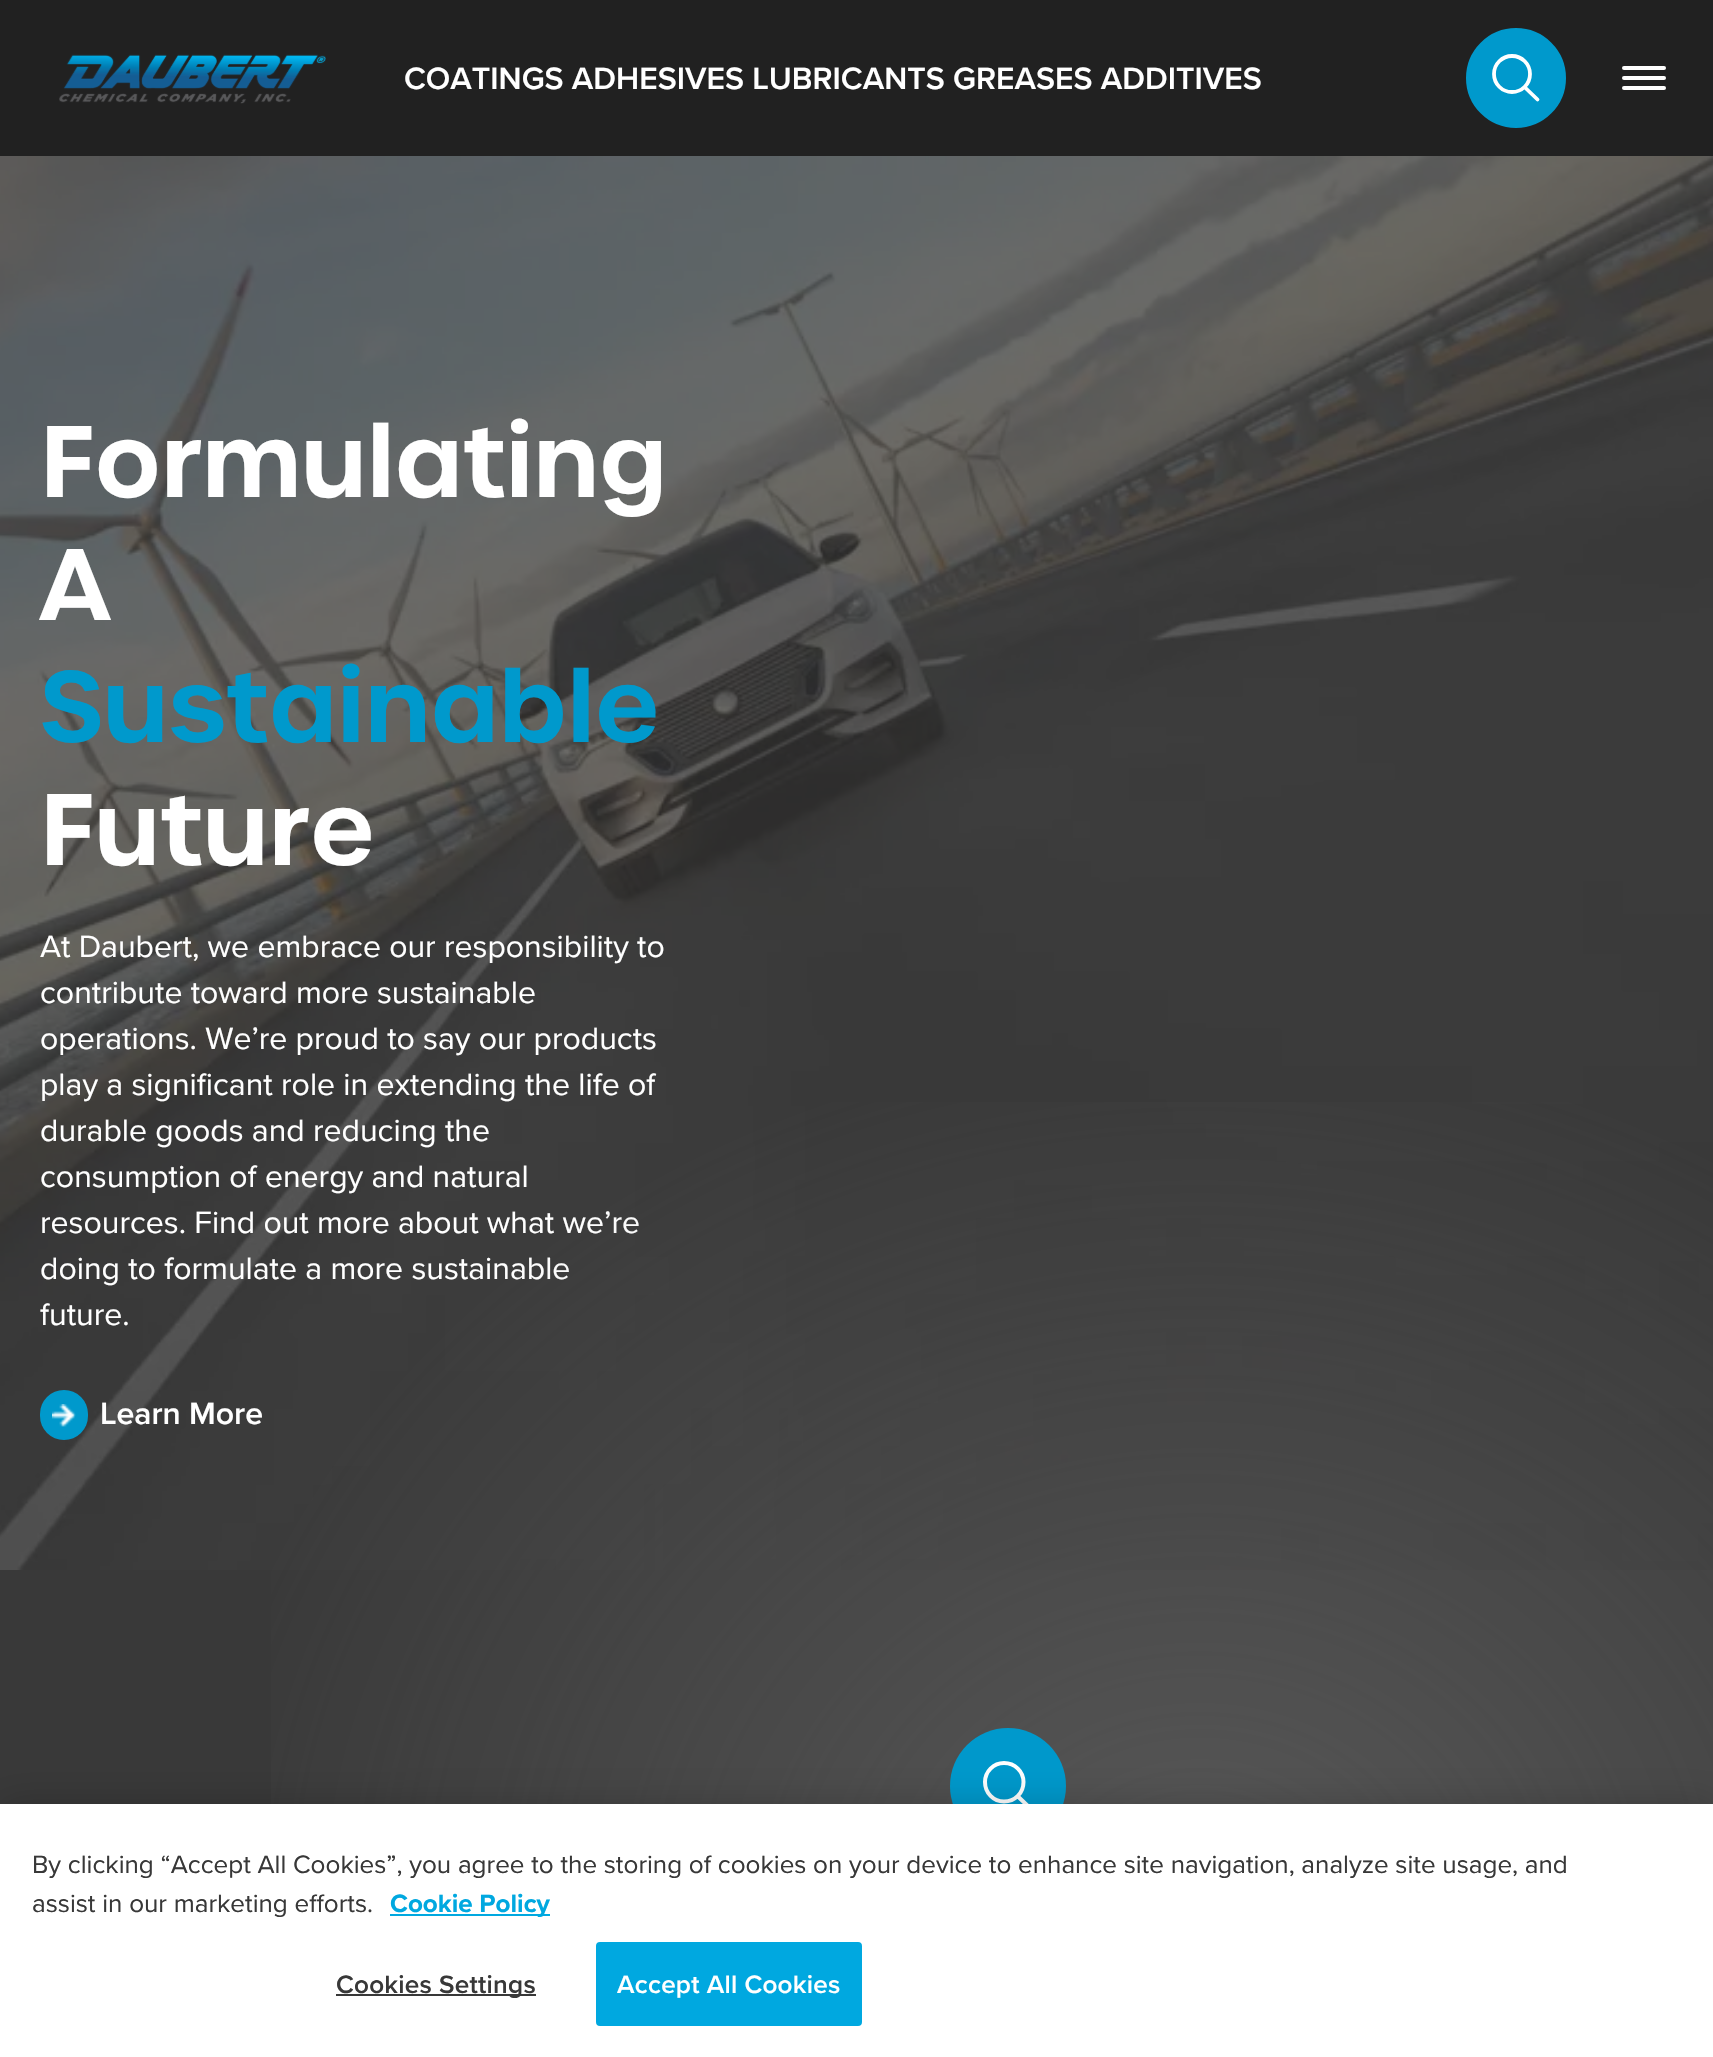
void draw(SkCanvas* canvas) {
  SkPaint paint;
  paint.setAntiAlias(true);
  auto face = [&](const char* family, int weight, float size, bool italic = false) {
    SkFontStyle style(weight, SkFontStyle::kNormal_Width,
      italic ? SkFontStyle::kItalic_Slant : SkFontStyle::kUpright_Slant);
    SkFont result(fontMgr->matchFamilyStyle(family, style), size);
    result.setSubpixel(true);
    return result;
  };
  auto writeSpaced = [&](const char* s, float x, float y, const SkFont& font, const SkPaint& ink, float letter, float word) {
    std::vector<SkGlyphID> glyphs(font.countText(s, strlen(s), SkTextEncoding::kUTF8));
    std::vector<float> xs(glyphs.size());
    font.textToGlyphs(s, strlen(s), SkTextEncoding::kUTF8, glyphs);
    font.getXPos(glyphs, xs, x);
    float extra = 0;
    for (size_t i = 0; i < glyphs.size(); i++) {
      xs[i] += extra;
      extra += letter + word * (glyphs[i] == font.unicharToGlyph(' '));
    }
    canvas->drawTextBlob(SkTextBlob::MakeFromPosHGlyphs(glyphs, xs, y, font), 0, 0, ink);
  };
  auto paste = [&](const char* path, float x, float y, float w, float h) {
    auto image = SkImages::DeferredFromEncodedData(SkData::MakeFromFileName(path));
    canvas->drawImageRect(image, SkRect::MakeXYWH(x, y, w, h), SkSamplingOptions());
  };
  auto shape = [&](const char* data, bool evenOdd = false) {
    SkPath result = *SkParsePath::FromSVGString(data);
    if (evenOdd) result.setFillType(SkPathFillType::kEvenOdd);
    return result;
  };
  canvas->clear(0xff393939);
  paint.setColor(0xff212121);
  canvas->drawRect(SkRect::MakeXYWH(0, 0, 1713, 156), paint);
  paste("img/1.png", 59, 54, 267, 50);
  paint.setColor(0xff0099cc);
  canvas->drawCircle(1516, 78, 54, paint);
  paint.setStroke(true);
  paint.setStrokeWidth(8);
  paint.setColor(0xff212121);
  canvas->drawCircle(1516, 78, 54, paint);
  paint.setStrokeWidth(3.8f);
  paint.setStrokeCap(SkPaint::kRound_Cap);
  paint.setStrokeJoin(SkPaint::kRound_Join);
  paint.setColor(0xffffffff);
  canvas->drawPath(shape("M1530 74C1530 84 1522 92 1512 92C1502 92 1494 84 1494 74C1494 64 1502 56 1512 56C1522 56 1530 64 1530 74ZM1537.5 99.5L1525.5 88"), paint);
  paint.setStroke(false);
  canvas->drawRoundRect(SkRect::MakeXYWH(1622, 66, 44, 4), 2, 2, paint);
  canvas->drawRoundRect(SkRect::MakeXYWH(1622, 76, 44, 4), 2, 2, paint);
  canvas->drawRoundRect(SkRect::MakeXYWH(1622, 86, 44, 4), 2, 2, paint);
  paste("img/2.png", 0, 156, 1713, 1414);
  paint.setColor(0xff0099cc);
  canvas->drawRoundRect(SkRect::MakeXYWH(40, 1390, 48, 50), 24, 24, paint);
  paste("img/3.png", 52, 1404, 24, 23);
  auto f0 = face("Proxima Nova", 600, 32);
  paint.setColor(0xffffffff);
  canvas->drawString("COATINGS ADHESIVES LUBRICANTS GREASES ADDITIVES", 404, 89, f0, paint);
  auto f1 = face("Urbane", 600, 98);
  canvas->drawString("Formulating", 40, 497, f1, paint);
  canvas->drawString("A", 40, 620, f1, paint);
  paint.setColor(0xff0099cc);
  canvas->drawString("Sustainable", 40, 742, f1, paint);
  paint.setColor(0xffffffff);
  canvas->drawString("Future", 40, 865, f1, paint);
  auto f2 = face("Proxima Nova", 400, 32);
  {
    const struct { const char* s; float x, y; } items[] = {
      {"At Daubert, we embrace our responsibility to", 40, 957},
      {"contribute toward more sustainable", 40, 1003},
      {"operations. We’re proud to say our products", 40, 1049},
      {"play a significant role in extending the life of", 40, 1095},
      {"durable goods and reducing the", 40, 1141},
      {"consumption of energy and natural", 40, 1187},
      {"resources. Find out more about what we’re", 40, 1233},
      {"doing to formulate a more sustainable", 40, 1279},
      {"future.", 40, 1325},
    };
    for (auto [s, x, y] : items) {
      canvas->drawString(s, x, y, f2, paint);
    }
  }
  canvas->drawString("Learn More", 100, 1424, f0, paint);
  {
    const SkColor colors[] = {0xcc5f5f5f, 0x005f5f5f, 0x00000000};
    const float stops[] = {0, 0.6f, 1};
    SkMatrix m = SkMatrix::Translate(1200, 1917).preScale(1697, 1469);
    paint.setShader(SkGradientShader::MakeRadial({0, 0}, 1, colors, stops, 3, SkTileMode::kClamp, 0, &m));
    paint.setAlpha(255);
  }
  canvas->drawRect(SkRect::MakeXYWH(271, 1102, 1442, 702), paint);
  paint.setShader(nullptr);
  paint.setColor(0xff0099cc);
  canvas->drawCircle(1008, 1786, 58, paint);
  paint.setStroke(true);
  paint.setStrokeWidth(4);
  paint.setColor(0xffffffff);
  canvas->drawPath(shape("M1023.5 1782C1023.5 1793 1015 1801.5 1004 1801.5C993.5 1801.5 985 1793 985 1782C985 1771.5 993.5 1763 1004 1763C1015 1763 1023.5 1771.5 1023.5 1782ZM1031 1809L1018.5 1797"), paint);
  paint.setStroke(false);
  paint.setColor(0x33000000);
  paint.setMaskFilter(SkMaskFilter::MakeBlur(kNormal_SkBlurStyle, 18));
  canvas->drawRect(SkRect::MakeXYWH(0, 1804, 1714, 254), paint);
  paint.setMaskFilter(nullptr);
  paint.setColor(0xffffffff);
  canvas->drawRect(SkRect::MakeXYWH(0, 1804, 1713, 253), paint);
  auto f3 = face("Proxima Nova", 400, 26.02f);
  paint.setColor(0xff383838);
  canvas->drawString("By clicking “Accept All Cookies”, you agree to the storing of cookies on your device to enhance site navigation, analyze site usage, and", 32, 1873, f3, paint);
  canvas->drawString("assist in our marketing efforts.", 32, 1912, f3, paint);
  paint.setColor(0xff00a8e0);
  canvas->drawRect(SkRect::MakeXYWH(390, 1914, 160, 2), paint);
  auto f4 = face("Proxima Nova", 700, 26.02f);
  canvas->drawString("Cookie Policy", 390, 1912, f4, paint);
  paint.setColor(0xff383838);
  canvas->drawRect(SkRect::MakeXYWH(336, 1994, 200, 2), paint);
  auto f5 = face("Proxima Nova", 600, 26.02f);
  writeSpaced("Cookies Settings", 336, 1993, f5, paint, 0.25f, 0);
  paint.setColor(0xff00a8e0);
  canvas->drawRoundRect(SkRect::MakeXYWH(597, 1943, 264, 82), 3, 3, paint);
  paint.setStroke(true);
  paint.setStrokeWidth(2);
  paint.setStrokeCap(SkPaint::kButt_Cap);
  paint.setStrokeJoin(SkPaint::kMiter_Join);
  canvas->drawRoundRect(SkRect::MakeXYWH(597, 1943, 264, 82), 3, 3, paint);
  paint.setStroke(false);
  paint.setColor(0xffffffff);
  writeSpaced("Accept All Cookies", 617, 1993, f5, paint, 0.25f, 0);
}
